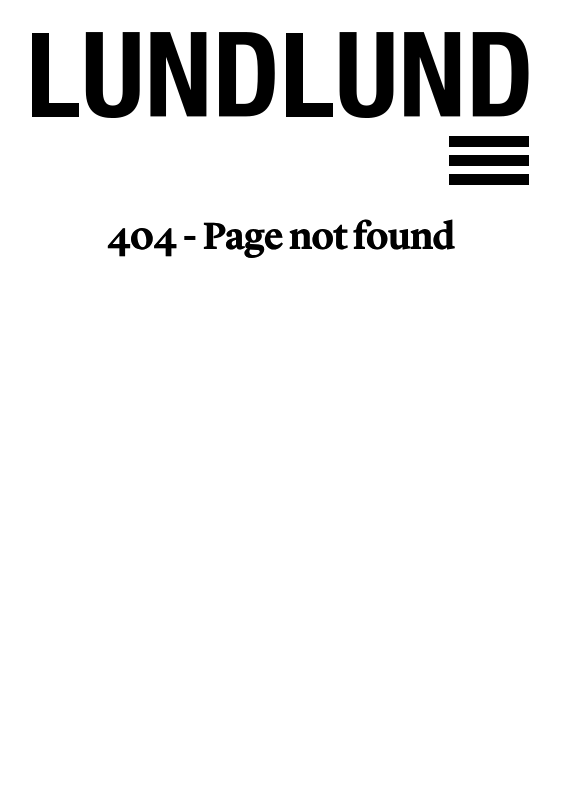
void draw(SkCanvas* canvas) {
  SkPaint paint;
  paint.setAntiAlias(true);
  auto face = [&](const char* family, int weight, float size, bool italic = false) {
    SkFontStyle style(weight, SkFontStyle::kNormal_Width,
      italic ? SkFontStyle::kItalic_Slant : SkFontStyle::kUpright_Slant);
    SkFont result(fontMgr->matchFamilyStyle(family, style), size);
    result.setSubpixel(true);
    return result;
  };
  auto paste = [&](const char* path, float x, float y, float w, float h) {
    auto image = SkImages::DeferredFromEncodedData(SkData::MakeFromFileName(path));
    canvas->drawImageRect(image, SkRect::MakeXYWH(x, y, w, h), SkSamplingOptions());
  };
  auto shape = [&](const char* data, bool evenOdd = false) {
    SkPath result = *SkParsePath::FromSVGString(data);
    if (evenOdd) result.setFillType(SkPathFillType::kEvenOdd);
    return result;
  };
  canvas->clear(0xffffffff);
  paint.setColor(0xff000000);
  canvas->drawPath(shape("M333 117V103H303V33H286V117Z", true), paint);
  paste("img/1.png", 85, 32, 444, 86);
  {
    const struct { float x, y, w, h; SkColor color; } items[] = {
      {449, 136, 80, 11, 0xff000000},
      {449, 155, 80, 11, 0xff000000},
      {449, 174, 80, 11, 0xff000000},
    };
    for (auto [x, y, w, h, color] : items) {
      paint.setColor(color);
      canvas->drawRect(SkRect::MakeXYWH(x, y, w, h), paint);
    }
  }
  canvas->drawPath(shape("M79 117V103H49V33H32V117Z", true), paint);
  auto f0 = face("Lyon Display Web", 700, 38);
  canvas->drawString("404 - Page not found", 107, 249, f0, paint);
}
